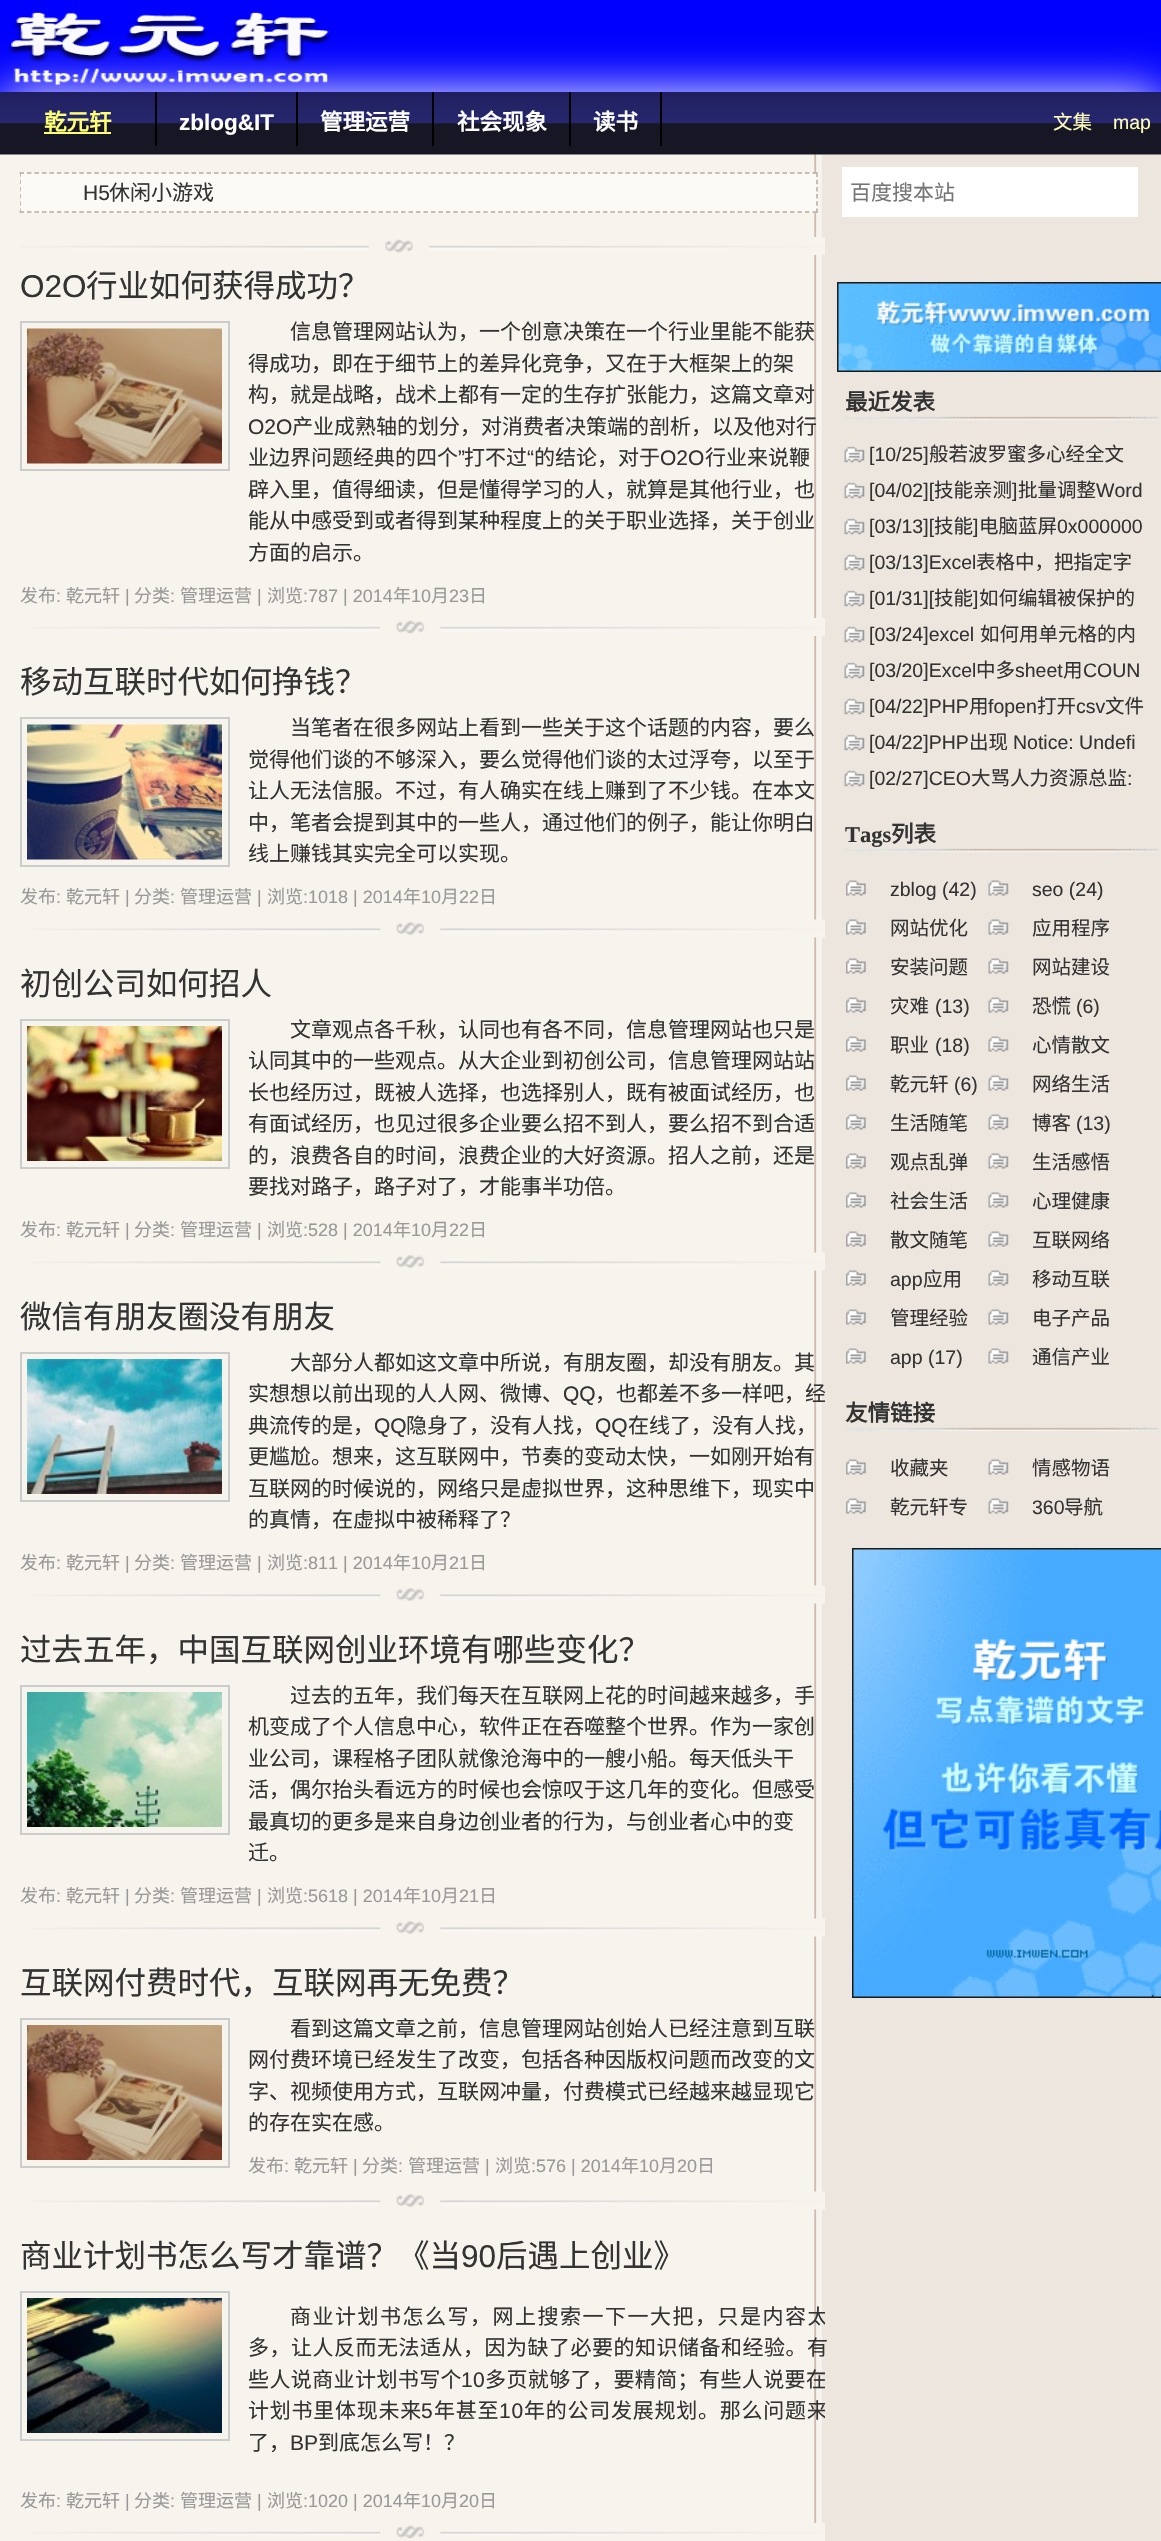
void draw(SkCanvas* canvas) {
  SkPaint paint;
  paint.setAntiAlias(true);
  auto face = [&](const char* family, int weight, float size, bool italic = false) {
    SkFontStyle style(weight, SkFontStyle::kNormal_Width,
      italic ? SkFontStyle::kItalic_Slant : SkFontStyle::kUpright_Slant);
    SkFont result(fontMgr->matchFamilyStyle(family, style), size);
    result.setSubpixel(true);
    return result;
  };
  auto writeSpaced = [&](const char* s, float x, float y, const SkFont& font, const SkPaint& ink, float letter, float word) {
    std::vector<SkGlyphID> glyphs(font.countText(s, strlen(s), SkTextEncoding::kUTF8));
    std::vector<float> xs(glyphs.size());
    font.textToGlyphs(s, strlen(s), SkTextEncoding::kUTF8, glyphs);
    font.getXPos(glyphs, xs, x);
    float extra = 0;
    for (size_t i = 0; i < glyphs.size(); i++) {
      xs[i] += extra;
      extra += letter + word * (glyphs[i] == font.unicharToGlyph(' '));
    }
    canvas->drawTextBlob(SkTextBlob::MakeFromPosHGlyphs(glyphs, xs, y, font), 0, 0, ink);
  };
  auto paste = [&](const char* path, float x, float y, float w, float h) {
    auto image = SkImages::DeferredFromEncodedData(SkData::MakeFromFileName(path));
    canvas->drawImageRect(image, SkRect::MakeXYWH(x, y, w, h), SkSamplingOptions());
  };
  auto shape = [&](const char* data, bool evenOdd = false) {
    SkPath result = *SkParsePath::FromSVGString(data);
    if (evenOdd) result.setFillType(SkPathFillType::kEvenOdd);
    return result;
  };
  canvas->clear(0xff0000ff);
  canvas->save();
  canvas->clipPath(shape("M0 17H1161V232H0ZM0 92H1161V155H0Z", true), true);
  paint.setColor(0xffffffff);
  paint.setMaskFilter(SkMaskFilter::MakeBlur(kNormal_SkBlurStyle, 25));
  canvas->drawRect(SkRect::MakeXYWH(2, 93, 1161, 63), paint);
  paint.setMaskFilter(nullptr);
  canvas->restore();
  paste("img/1.png", 7, 12, 325, 74);
  {
    const SkColor colors[] = {0xbf292929, 0xb8363636, 0xf0181717};
    const float stops[] = {0, 0.5f, 0.51f};
    const SkPoint ends[] = {{581, 91}, {581, 155}};
    paint.setShader(SkGradientShader::MakeLinear(ends, colors, stops, 3, SkTileMode::kClamp));
    paint.setAlpha(255);
  }
  canvas->drawRect(SkRect::MakeXYWH(0, 92, 1161, 63), paint);
  paint.setShader(nullptr);
  {
    const struct { float x, y, w, h; SkColor color; } items[] = {
      {155, 92, 2, 54, 0xff000000},
      {44, 132, 67, 2, 0xffffff73},
      {296, 92, 2, 54, 0xff000000},
      {432, 92, 2, 54, 0xff000000},
      {569, 92, 2, 54, 0xff000000},
      {660, 92, 2, 54, 0xff000000},
    };
    for (auto [x, y, w, h, color] : items) {
      paint.setColor(color);
      canvas->drawRect(SkRect::MakeXYWH(x, y, w, h), paint);
    }
  }
  paste("img/2.png", 0, 154, 1161, 2387);
  paint.setColor(0xfffcfaf7);
  canvas->drawRect(SkRect::MakeXYWH(20, 173, 798, 40), paint);
  paint.setStroke(true);
  paint.setStrokeWidth(1.5f);
  paint.setColor(0xffb9ab9e);
  paint.setPathEffect(SkDashPathEffect::Make({{4.5f, 2.98f}}, 0));
  canvas->drawPath(shape("M19.5 173H817.5"), paint);
  paint.setPathEffect(nullptr);
  paint.setPathEffect(SkDashPathEffect::Make({{4.5f, 2.7f}}, 0));
  canvas->drawPath(shape("M817 172.5V213"), paint);
  paint.setPathEffect(nullptr);
  paint.setPathEffect(SkDashPathEffect::Make({{4.5f, 2.98f}}, 0));
  canvas->drawPath(shape("M19.5 212H817.5"), paint);
  paint.setPathEffect(nullptr);
  canvas->save();
  canvas->clipRect(SkRect::MakeXYWH(20, 155, 798, 76));
  paint.setPathEffect(SkDashPathEffect::Make({{4.5f, 2.7f}}, 0));
  canvas->drawPath(shape("M20 172.5V213"), paint);
  paint.setPathEffect(nullptr);
  canvas->restore();
  paste("img/3.png", 21, 237, 804, 18);
  paste("img/4.png", 33, 618, 792, 18);
  paint.setStrokeWidth(2);
  paint.setColor(0xffcccccc);
  canvas->drawRect(SkRect::MakeXYWH(21, 322, 208, 148), paint);
  paste("img/5.png", 27, 328, 195, 136);
  paste("img/6.png", 32, 919, 793, 19);
  canvas->drawRect(SkRect::MakeXYWH(21, 718, 208, 148), paint);
  paste("img/7.png", 27, 724, 195, 136);
  paste("img/6.png", 32, 1252, 793, 19);
  canvas->drawRect(SkRect::MakeXYWH(21, 1020, 208, 148), paint);
  paste("img/8.png", 27, 1026, 195, 135);
  paste("img/6.png", 32, 1585, 793, 19);
  canvas->drawRect(SkRect::MakeXYWH(21, 1353, 208, 148), paint);
  paste("img/9.png", 27, 1359, 195, 135);
  paste("img/6.png", 32, 1918, 793, 19);
  canvas->drawRect(SkRect::MakeXYWH(21, 1686, 208, 148), paint);
  paste("img/10.png", 27, 1692, 195, 135);
  paste("img/6.png", 32, 2191, 793, 19);
  canvas->drawRect(SkRect::MakeXYWH(21, 2019, 208, 148), paint);
  paste("img/11.png", 27, 2025, 195, 135);
  paste("img/4.png", 33, 2523, 792, 18);
  canvas->drawRect(SkRect::MakeXYWH(21, 2292, 208, 148), paint);
  paste("img/12.png", 27, 2298, 195, 135);
  paint.setStroke(false);
  paint.setColor(0xffffffff);
  canvas->drawRoundRect(SkRect::MakeXYWH(841, 166, 298, 52), 0.5f, 0.5f, paint);
  paint.setStroke(true);
  paint.setColor(0xffede6df);
  canvas->drawRoundRect(SkRect::MakeXYWH(841, 166, 298, 52), 0.5f, 0.5f, paint);
  paint.setStroke(false);
  canvas->drawRect(SkRect::MakeXYWH(1139, 165, 1, 54), paint);
  paste("img/13.png", 837, 282, 324, 90);
  paste("img/14.png", 844, 416, 314, 5);
  paste("img/15.png", 844, 446, 21, 17);
  paste("img/15.png", 844, 482, 21, 17);
  paste("img/15.png", 844, 518, 21, 17);
  paste("img/15.png", 844, 554, 21, 17);
  paste("img/15.png", 844, 590, 21, 17);
  paste("img/15.png", 844, 626, 21, 17);
  paste("img/15.png", 844, 662, 21, 17);
  paste("img/15.png", 844, 698, 21, 17);
  paste("img/15.png", 844, 734, 21, 17);
  paste("img/15.png", 844, 770, 21, 17);
  paste("img/14.png", 844, 848, 314, 5);
  paste("img/16.png", 846, 880, 20, 16);
  paste("img/17.png", 988, 880, 21, 16);
  paste("img/16.png", 846, 919, 20, 16);
  paste("img/17.png", 988, 919, 21, 16);
  paste("img/16.png", 846, 958, 20, 16);
  paste("img/17.png", 988, 958, 21, 16);
  paste("img/16.png", 846, 997, 20, 16);
  paste("img/17.png", 988, 997, 21, 16);
  paste("img/16.png", 846, 1036, 20, 16);
  paste("img/17.png", 988, 1036, 21, 16);
  paste("img/16.png", 846, 1075, 20, 16);
  paste("img/17.png", 988, 1075, 21, 16);
  paste("img/16.png", 846, 1114, 20, 16);
  paste("img/17.png", 988, 1114, 21, 16);
  paste("img/16.png", 846, 1153, 20, 16);
  paste("img/17.png", 988, 1153, 21, 16);
  paste("img/16.png", 846, 1192, 20, 16);
  paste("img/17.png", 988, 1192, 21, 16);
  paste("img/16.png", 846, 1231, 20, 16);
  paste("img/17.png", 988, 1231, 21, 16);
  paste("img/16.png", 846, 1270, 20, 16);
  paste("img/17.png", 988, 1270, 21, 16);
  paste("img/16.png", 846, 1309, 20, 16);
  paste("img/17.png", 988, 1309, 21, 16);
  paste("img/16.png", 846, 1348, 20, 16);
  paste("img/17.png", 988, 1348, 21, 16);
  paste("img/14.png", 844, 1427, 314, 5);
  paste("img/16.png", 846, 1459, 20, 16);
  paste("img/17.png", 988, 1459, 21, 16);
  paste("img/16.png", 846, 1498, 20, 16);
  paste("img/17.png", 988, 1498, 21, 16);
  paste("img/18.png", 852, 1548, 309, 450);
  auto f0 = face("Noto Sans CJK SC", 700, 22.5f);
  paint.setColor(0xffffff73);
  canvas->drawString("乾元轩", 44, 130, f0, paint);
  auto f1 = face("Liberation Sans", 700, 22.5f);
  paint.setColor(0xffffffff);
  canvas->drawString("zblog&IT", 179, 130, f1, paint);
  {
    const struct { const char* s; float x, y; } items[] = {
      {"管理运营", 320, 130},
      {"社会现象", 457, 130},
      {"读书", 593, 130},
    };
    for (auto [s, x, y] : items) {
      canvas->drawString(s, x, y, f0, paint);
    }
  }
  auto f2 = face("Noto Sans CJK SC", 400, 19.5f);
  paint.setColor(0xfffdfcbc);
  canvas->drawString("文集", 1053, 129, f2, paint);
  auto f3 = face("Liberation Sans", 400, 19.5f);
  canvas->drawString("map", 1113, 129, f3, paint);
  auto f4 = face("Liberation Sans", 400, 21);
  paint.setColor(0xff333333);
  canvas->drawString("H5", 83, 200, f4, paint);
  auto f5 = face("Noto Sans CJK SC", 400, 21);
  canvas->drawString("休闲小游戏", 109, 200, f5, paint);
  auto f6 = face("Liberation Sans", 400, 31.5f);
  canvas->drawString("O2O", 20, 297, f6, paint);
  auto f7 = face("Noto Sans CJK SC", 400, 31.5f);
  canvas->drawString("行业如何获得成功？", 86, 297, f7, paint);
  {
    const struct { const char* s; float x, y; } items[] = {
      {"信息管理网站认为，一个创意决策在一个行业里能不能获", 290, 339},
      {"得成功，即在于细节上的差异化竞争，又在于大框架上的架", 248, 371},
      {"构，就是战略，战术上都有一定的生存扩张能力，这篇文章对", 248, 402},
    };
    for (auto [s, x, y] : items) {
      canvas->drawString(s, x, y, f5, paint);
    }
  }
  canvas->drawString("O2O", 248, 434, f4, paint);
  canvas->drawString("产业成熟轴的划分，对消费者决策端的剖析，以及他对行", 292, 434, f5, paint);
  canvas->drawString("业边界问题经典的四个", 248, 465, f5, paint);
  canvas->drawString("”", 458, 465, f4, paint);
  canvas->drawString("打不过", 464, 465, f5, paint);
  canvas->drawString("“", 527, 465, f4, paint);
  canvas->drawString("的结论，对于", 534, 465, f5, paint);
  canvas->drawString("O2O", 660, 465, f4, paint);
  {
    const struct { const char* s; float x, y; } items[] = {
      {"行业来说鞭", 705, 465},
      {"辟入里，值得细读，但是懂得学习的人，就算是其他行业，也", 248, 497},
      {"能从中感受到或者得到某种程度上的关于职业选择，关于创业", 248, 528},
      {"方面的启示。", 248, 560},
    };
    for (auto [s, x, y] : items) {
      canvas->drawString(s, x, y, f5, paint);
    }
  }
  auto f8 = face("Noto Sans CJK SC", 400, 18);
  paint.setColor(0xff999999);
  canvas->drawString("发布", 20, 602, f8, paint);
  auto f9 = face("Liberation Sans", 400, 18);
  canvas->drawString(":", 56, 602, f9, paint);
  canvas->drawString("乾元轩", 66, 602, f8, paint);
  canvas->drawString("|", 125, 602, f9, paint);
  canvas->drawString("分类", 134, 602, f8, paint);
  canvas->drawString(":", 170, 602, f9, paint);
  canvas->drawString("管理运营", 180, 602, f8, paint);
  canvas->drawString("|", 257, 602, f9, paint);
  canvas->drawString("浏览", 267, 602, f8, paint);
  canvas->drawString(":787 | 2014", 303, 602, f9, paint);
  canvas->drawString("年", 393, 602, f8, paint);
  canvas->drawString("10", 411, 602, f9, paint);
  canvas->drawString("月", 431, 602, f8, paint);
  canvas->drawString("23", 449, 602, f9, paint);
  canvas->drawString("日", 469, 602, f8, paint);
  paint.setColor(0xff333333);
  canvas->drawString("移动互联时代如何挣钱？", 20, 693, f7, paint);
  {
    const struct { const char* s; float x, y; } items[] = {
      {"当笔者在很多网站上看到一些关于这个话题的内容，要么", 290, 735},
      {"觉得他们谈的不够深入，要么觉得他们谈的太过浮夸，以至于", 248, 767},
      {"让人无法信服。不过，有人确实在线上赚到了不少钱。在本文", 248, 798},
      {"中，笔者会提到其中的一些人，通过他们的例子，能让你明白", 248, 830},
      {"线上赚钱其实完全可以实现。", 248, 861},
    };
    for (auto [s, x, y] : items) {
      canvas->drawString(s, x, y, f5, paint);
    }
  }
  paint.setColor(0xff999999);
  canvas->drawString("发布", 20, 903, f8, paint);
  canvas->drawString(":", 56, 903, f9, paint);
  canvas->drawString("乾元轩", 66, 903, f8, paint);
  canvas->drawString("|", 125, 903, f9, paint);
  canvas->drawString("分类", 134, 903, f8, paint);
  canvas->drawString(":", 170, 903, f9, paint);
  canvas->drawString("管理运营", 180, 903, f8, paint);
  canvas->drawString("|", 257, 903, f9, paint);
  canvas->drawString("浏览", 267, 903, f8, paint);
  canvas->drawString(":1018 | 2014", 303, 903, f9, paint);
  canvas->drawString("年", 403, 903, f8, paint);
  canvas->drawString("10", 421, 903, f9, paint);
  canvas->drawString("月", 441, 903, f8, paint);
  canvas->drawString("22", 459, 903, f9, paint);
  canvas->drawString("日", 479, 903, f8, paint);
  paint.setColor(0xff333333);
  canvas->drawString("初创公司如何招人", 20, 995, f7, paint);
  {
    const struct { const char* s; float x, y; } items[] = {
      {"文章观点各千秋，认同也有各不同，信息管理网站也只是", 290, 1037},
      {"认同其中的一些观点。从大企业到初创公司，信息管理网站站", 248, 1068},
      {"长也经历过，既被人选择，也选择别人，既有被面试经历，也", 248, 1100},
      {"有面试经历，也见过很多企业要么招不到人，要么招不到合适", 248, 1131},
      {"的，浪费各自的时间，浪费企业的大好资源。招人之前，还是", 248, 1163},
      {"要找对路子，路子对了，才能事半功倍。", 248, 1194},
    };
    for (auto [s, x, y] : items) {
      canvas->drawString(s, x, y, f5, paint);
    }
  }
  paint.setColor(0xff999999);
  canvas->drawString("发布", 20, 1236, f8, paint);
  canvas->drawString(":", 56, 1236, f9, paint);
  canvas->drawString("乾元轩", 66, 1236, f8, paint);
  canvas->drawString("|", 125, 1236, f9, paint);
  canvas->drawString("分类", 134, 1236, f8, paint);
  canvas->drawString(":", 170, 1236, f9, paint);
  canvas->drawString("管理运营", 180, 1236, f8, paint);
  canvas->drawString("|", 257, 1236, f9, paint);
  canvas->drawString("浏览", 267, 1236, f8, paint);
  canvas->drawString(":528 | 2014", 303, 1236, f9, paint);
  canvas->drawString("年", 393, 1236, f8, paint);
  canvas->drawString("10", 411, 1236, f9, paint);
  canvas->drawString("月", 431, 1236, f8, paint);
  canvas->drawString("22", 449, 1236, f9, paint);
  canvas->drawString("日", 469, 1236, f8, paint);
  paint.setColor(0xff333333);
  canvas->drawString("微信有朋友圈没有朋友", 20, 1328, f7, paint);
  canvas->drawString("大部分人都如这文章中所说，有朋友圈，却没有朋友。其", 290, 1370, f5, paint);
  canvas->drawString("实想想以前出现的人人网、微博、", 248, 1401, f5, paint);
  canvas->drawString("QQ", 563, 1401, f4, paint);
  canvas->save();
  canvas->clipRect(SkRect::MakeXYWH(248, 1347, 577, 194));
  canvas->drawString("，也都差不多一样吧，经", 595, 1401, f5, paint);
  canvas->restore();
  canvas->drawString("典流传的是，", 248, 1433, f5, paint);
  canvas->drawString("QQ", 374, 1433, f4, paint);
  canvas->drawString("隐身了，没有人找，", 406, 1433, f5, paint);
  canvas->drawString("QQ", 595, 1433, f4, paint);
  {
    const struct { const char* s; float x, y; } items[] = {
      {"在线了，没有人找，", 628, 1433},
      {"更尴尬。想来，这互联网中，节奏的变动太快，一如刚开始有", 248, 1464},
      {"互联网的时候说的，网络只是虚拟世界，这种思维下，现实中", 248, 1496},
      {"的真情，在虚拟中被稀释了？", 248, 1527},
    };
    for (auto [s, x, y] : items) {
      canvas->drawString(s, x, y, f5, paint);
    }
  }
  paint.setColor(0xff999999);
  canvas->drawString("发布", 20, 1569, f8, paint);
  canvas->drawString(":", 56, 1569, f9, paint);
  canvas->drawString("乾元轩", 66, 1569, f8, paint);
  canvas->drawString("|", 125, 1569, f9, paint);
  canvas->drawString("分类", 134, 1569, f8, paint);
  canvas->drawString(":", 170, 1569, f9, paint);
  canvas->drawString("管理运营", 180, 1569, f8, paint);
  canvas->drawString("|", 257, 1569, f9, paint);
  canvas->drawString("浏览", 267, 1569, f8, paint);
  canvas->drawString(":811 | 2014", 303, 1569, f9, paint);
  canvas->drawString("年", 393, 1569, f8, paint);
  canvas->drawString("10", 411, 1569, f9, paint);
  canvas->drawString("月", 431, 1569, f8, paint);
  canvas->drawString("21", 449, 1569, f9, paint);
  canvas->drawString("日", 469, 1569, f8, paint);
  paint.setColor(0xff333333);
  canvas->drawString("过去五年，中国互联网创业环境有哪些变化？", 20, 1661, f7, paint);
  {
    const struct { const char* s; float x, y; } items[] = {
      {"过去的五年，我们每天在互联网上花的时间越来越多，手", 290, 1703},
      {"机变成了个人信息中心，软件正在吞噬整个世界。作为一家创", 248, 1734},
      {"业公司，课程格子团队就像沧海中的一艘小船。每天低头干", 248, 1766},
      {"活，偶尔抬头看远方的时候也会惊叹于这几年的变化。但感受", 248, 1797},
      {"最真切的更多是来自身边创业者的行为，与创业者心中的变", 248, 1829},
      {"迁。", 248, 1860},
    };
    for (auto [s, x, y] : items) {
      canvas->drawString(s, x, y, f5, paint);
    }
  }
  paint.setColor(0xff999999);
  canvas->drawString("发布", 20, 1902, f8, paint);
  canvas->drawString(":", 56, 1902, f9, paint);
  canvas->drawString("乾元轩", 66, 1902, f8, paint);
  canvas->drawString("|", 125, 1902, f9, paint);
  canvas->drawString("分类", 134, 1902, f8, paint);
  canvas->drawString(":", 170, 1902, f9, paint);
  canvas->drawString("管理运营", 180, 1902, f8, paint);
  canvas->drawString("|", 257, 1902, f9, paint);
  canvas->drawString("浏览", 267, 1902, f8, paint);
  canvas->drawString(":5618 | 2014", 303, 1902, f9, paint);
  canvas->drawString("年", 403, 1902, f8, paint);
  canvas->drawString("10", 421, 1902, f9, paint);
  canvas->drawString("月", 441, 1902, f8, paint);
  canvas->drawString("21", 459, 1902, f9, paint);
  canvas->drawString("日", 479, 1902, f8, paint);
  paint.setColor(0xff333333);
  canvas->drawString("互联网付费时代，互联网再无免费？", 20, 1994, f7, paint);
  {
    const struct { const char* s; float x, y; } items[] = {
      {"看到这篇文章之前，信息管理网站创始人已经注意到互联", 290, 2036},
      {"网付费环境已经发生了改变，包括各种因版权问题而改变的文", 248, 2067},
      {"字、视频使用方式，互联网冲量，付费模式已经越来越显现它", 248, 2099},
      {"的存在实在感。", 248, 2130},
    };
    for (auto [s, x, y] : items) {
      canvas->drawString(s, x, y, f5, paint);
    }
  }
  paint.setColor(0xff999999);
  canvas->drawString("发布", 248, 2172, f8, paint);
  canvas->drawString(":", 284, 2172, f9, paint);
  canvas->drawString("乾元轩", 294, 2172, f8, paint);
  canvas->drawString("|", 353, 2172, f9, paint);
  canvas->drawString("分类", 362, 2172, f8, paint);
  canvas->drawString(":", 398, 2172, f9, paint);
  canvas->drawString("管理运营", 408, 2172, f8, paint);
  canvas->drawString("|", 485, 2172, f9, paint);
  canvas->drawString("浏览", 495, 2172, f8, paint);
  canvas->drawString(":576 | 2014", 531, 2172, f9, paint);
  canvas->drawString("年", 621, 2172, f8, paint);
  canvas->drawString("10", 639, 2172, f9, paint);
  canvas->drawString("月", 659, 2172, f8, paint);
  canvas->drawString("20", 677, 2172, f9, paint);
  canvas->drawString("日", 697, 2172, f8, paint);
  paint.setColor(0xff333333);
  canvas->drawString("商业计划书怎么写才靠谱？《当", 20, 2267, f7, paint);
  canvas->drawString("90", 461, 2267, f6, paint);
  canvas->drawString("后遇上创业》", 496, 2267, f7, paint);
  canvas->save();
  canvas->clipRect(SkRect::MakeXYWH(248, 2286, 577, 192));
  writeSpaced("商业计划书怎么写，网上搜索一下一大把，只是内容太", 290, 2324, f5, paint, 1.5f, 0);
  canvas->restore();
  writeSpaced("多，让人反而无法适从，因为缺了必要的知识储备和经验。有", 248, 2355, f5, paint, 0.5f, 0);
  writeSpaced("些人说商业计划书写个", 248, 2387, f5, paint, 0.4f, 0);
  writeSpaced("10", 461, 2387, f4, paint, 0.4f, 0);
  canvas->save();
  canvas->clipRect(SkRect::MakeXYWH(248, 2286, 577, 192));
  writeSpaced("多页就够了，要精简；有些人说要在", 485, 2387, f5, paint, 0.4f, 0);
  canvas->restore();
  writeSpaced("计划书里体现未来", 248, 2418, f5, paint, 0.75f, 0);
  writeSpaced("5", 421, 2418, f4, paint, 0.75f, 0);
  writeSpaced("年甚至", 434, 2418, f5, paint, 0.75f, 0);
  writeSpaced("10", 499, 2418, f4, paint, 0.75f, 0);
  canvas->save();
  canvas->clipRect(SkRect::MakeXYWH(248, 2286, 577, 192));
  writeSpaced("年的公司发展规划。那么问题来", 524, 2418, f5, paint, 0.75f, 0);
  canvas->restore();
  canvas->drawString("了，", 248, 2450, f5, paint);
  canvas->drawString("BP", 290, 2450, f4, paint);
  canvas->drawString("到底怎么写！？", 318, 2450, f5, paint);
  paint.setColor(0xff999999);
  canvas->drawString("发布", 20, 2507, f8, paint);
  canvas->drawString(":", 56, 2507, f9, paint);
  canvas->drawString("乾元轩", 66, 2507, f8, paint);
  canvas->drawString("|", 125, 2507, f9, paint);
  canvas->drawString("分类", 134, 2507, f8, paint);
  canvas->drawString(":", 170, 2507, f9, paint);
  canvas->drawString("管理运营", 180, 2507, f8, paint);
  canvas->drawString("|", 257, 2507, f9, paint);
  canvas->drawString("浏览", 267, 2507, f8, paint);
  canvas->drawString(":1020 | 2014", 303, 2507, f9, paint);
  canvas->drawString("年", 403, 2507, f8, paint);
  canvas->drawString("10", 421, 2507, f9, paint);
  canvas->drawString("月", 441, 2507, f8, paint);
  canvas->drawString("20", 459, 2507, f9, paint);
  canvas->drawString("日", 479, 2507, f8, paint);
  paint.setColor(0xff757575);
  canvas->drawString("百度搜本站", 850, 200, f5, paint);
  paint.setColor(0xff333333);
  canvas->drawString("最近发表", 845, 410, f0, paint);
  canvas->drawString("[10/25]", 869, 461, f3, paint);
  canvas->drawString("般若波罗蜜多心经全文", 929, 461, f2, paint);
  canvas->drawString("[04/02][", 869, 497, f3, paint);
  canvas->drawString("技能亲测", 934, 497, f2, paint);
  canvas->drawString("]", 1012, 497, f3, paint);
  canvas->drawString("批量调整", 1018, 497, f2, paint);
  canvas->drawString("Word", 1096, 497, f3, paint);
  canvas->drawString("[03/13][", 869, 533, f3, paint);
  canvas->drawString("技能", 934, 533, f2, paint);
  canvas->drawString("]", 973, 533, f3, paint);
  canvas->drawString("电脑蓝屏", 979, 533, f2, paint);
  canvas->drawString("0x000000", 1057, 533, f3, paint);
  canvas->drawString("[03/13]Excel", 869, 569, f3, paint);
  canvas->drawString("表格中，把指定字", 976, 569, f2, paint);
  canvas->drawString("[01/31][", 869, 605, f3, paint);
  canvas->drawString("技能", 934, 605, f2, paint);
  canvas->drawString("]", 973, 605, f3, paint);
  canvas->drawString("如何编辑被保护的", 979, 605, f2, paint);
  canvas->drawString("[03/24]excel", 869, 641, f3, paint);
  canvas->drawString("如何用单元格的内", 980, 641, f2, paint);
  canvas->drawString("[03/20]Excel", 869, 677, f3, paint);
  canvas->drawString("中多", 976, 677, f2, paint);
  canvas->drawString("sheet", 1015, 677, f3, paint);
  canvas->drawString("用", 1063, 677, f2, paint);
  canvas->drawString("COUN", 1083, 677, f3, paint);
  canvas->drawString("[04/22]PHP", 869, 713, f3, paint);
  canvas->drawString("用", 969, 713, f2, paint);
  canvas->drawString("fopen", 988, 713, f3, paint);
  canvas->drawString("打开", 1037, 713, f2, paint);
  canvas->drawString("csv", 1076, 713, f3, paint);
  canvas->drawString("文件", 1105, 713, f2, paint);
  canvas->drawString("[04/22]PHP", 869, 749, f3, paint);
  canvas->drawString("出现", 969, 749, f2, paint);
  canvas->drawString("Notice: Undefi", 1013, 749, f3, paint);
  canvas->drawString("[02/27]CEO", 869, 785, f3, paint);
  canvas->drawString("大骂人力资源总监", 971, 785, f2, paint);
  canvas->drawString(":", 1127, 785, f3, paint);
  auto f10 = face("Liberation Serif", 700, 22.5f);
  canvas->drawString("Tags", 845, 842, f10, paint);
  canvas->drawString("列表", 891, 842, f0, paint);
  canvas->drawString("zblog (42)", 890, 896, f3, paint);
  canvas->drawString("seo (24)", 1032, 896, f3, paint);
  {
    const struct { const char* s; float x, y; } items[] = {
      {"网站优化", 890, 935},
      {"应用程序", 1032, 935},
      {"安装问题", 890, 974},
      {"网站建设", 1032, 974},
      {"灾难", 890, 1013},
    };
    for (auto [s, x, y] : items) {
      canvas->drawString(s, x, y, f2, paint);
    }
  }
  canvas->drawString("(13)", 935, 1013, f3, paint);
  canvas->drawString("恐慌", 1032, 1013, f2, paint);
  canvas->drawString("(6)", 1076, 1013, f3, paint);
  canvas->drawString("职业", 890, 1052, f2, paint);
  canvas->drawString("(18)", 935, 1052, f3, paint);
  canvas->drawString("心情散文", 1032, 1052, f2, paint);
  canvas->drawString("乾元轩", 890, 1091, f2, paint);
  canvas->drawString("(6)", 954, 1091, f3, paint);
  {
    const struct { const char* s; float x, y; } items[] = {
      {"网络生活", 1032, 1091},
      {"生活随笔", 890, 1130},
      {"博客", 1032, 1130},
    };
    for (auto [s, x, y] : items) {
      canvas->drawString(s, x, y, f2, paint);
    }
  }
  canvas->drawString("(13)", 1076, 1130, f3, paint);
  {
    const struct { const char* s; float x, y; } items[] = {
      {"观点乱弹", 890, 1169},
      {"生活感悟", 1032, 1169},
      {"社会生活", 890, 1208},
      {"心理健康", 1032, 1208},
      {"散文随笔", 890, 1247},
      {"互联网络", 1032, 1247},
    };
    for (auto [s, x, y] : items) {
      canvas->drawString(s, x, y, f2, paint);
    }
  }
  canvas->drawString("app", 890, 1286, f3, paint);
  {
    const struct { const char* s; float x, y; } items[] = {
      {"应用", 923, 1286},
      {"移动互联", 1032, 1286},
      {"管理经验", 890, 1325},
      {"电子产品", 1032, 1325},
    };
    for (auto [s, x, y] : items) {
      canvas->drawString(s, x, y, f2, paint);
    }
  }
  canvas->drawString("app (17)", 890, 1364, f3, paint);
  canvas->drawString("通信产业", 1032, 1364, f2, paint);
  canvas->drawString("友情链接", 845, 1421, f0, paint);
  {
    const struct { const char* s; float x, y; } items[] = {
      {"收藏夹", 890, 1475},
      {"情感物语", 1032, 1475},
      {"乾元轩专", 890, 1514},
    };
    for (auto [s, x, y] : items) {
      canvas->drawString(s, x, y, f2, paint);
    }
  }
  canvas->drawString("360", 1032, 1514, f3, paint);
  canvas->drawString("导航", 1064, 1514, f2, paint);
}
